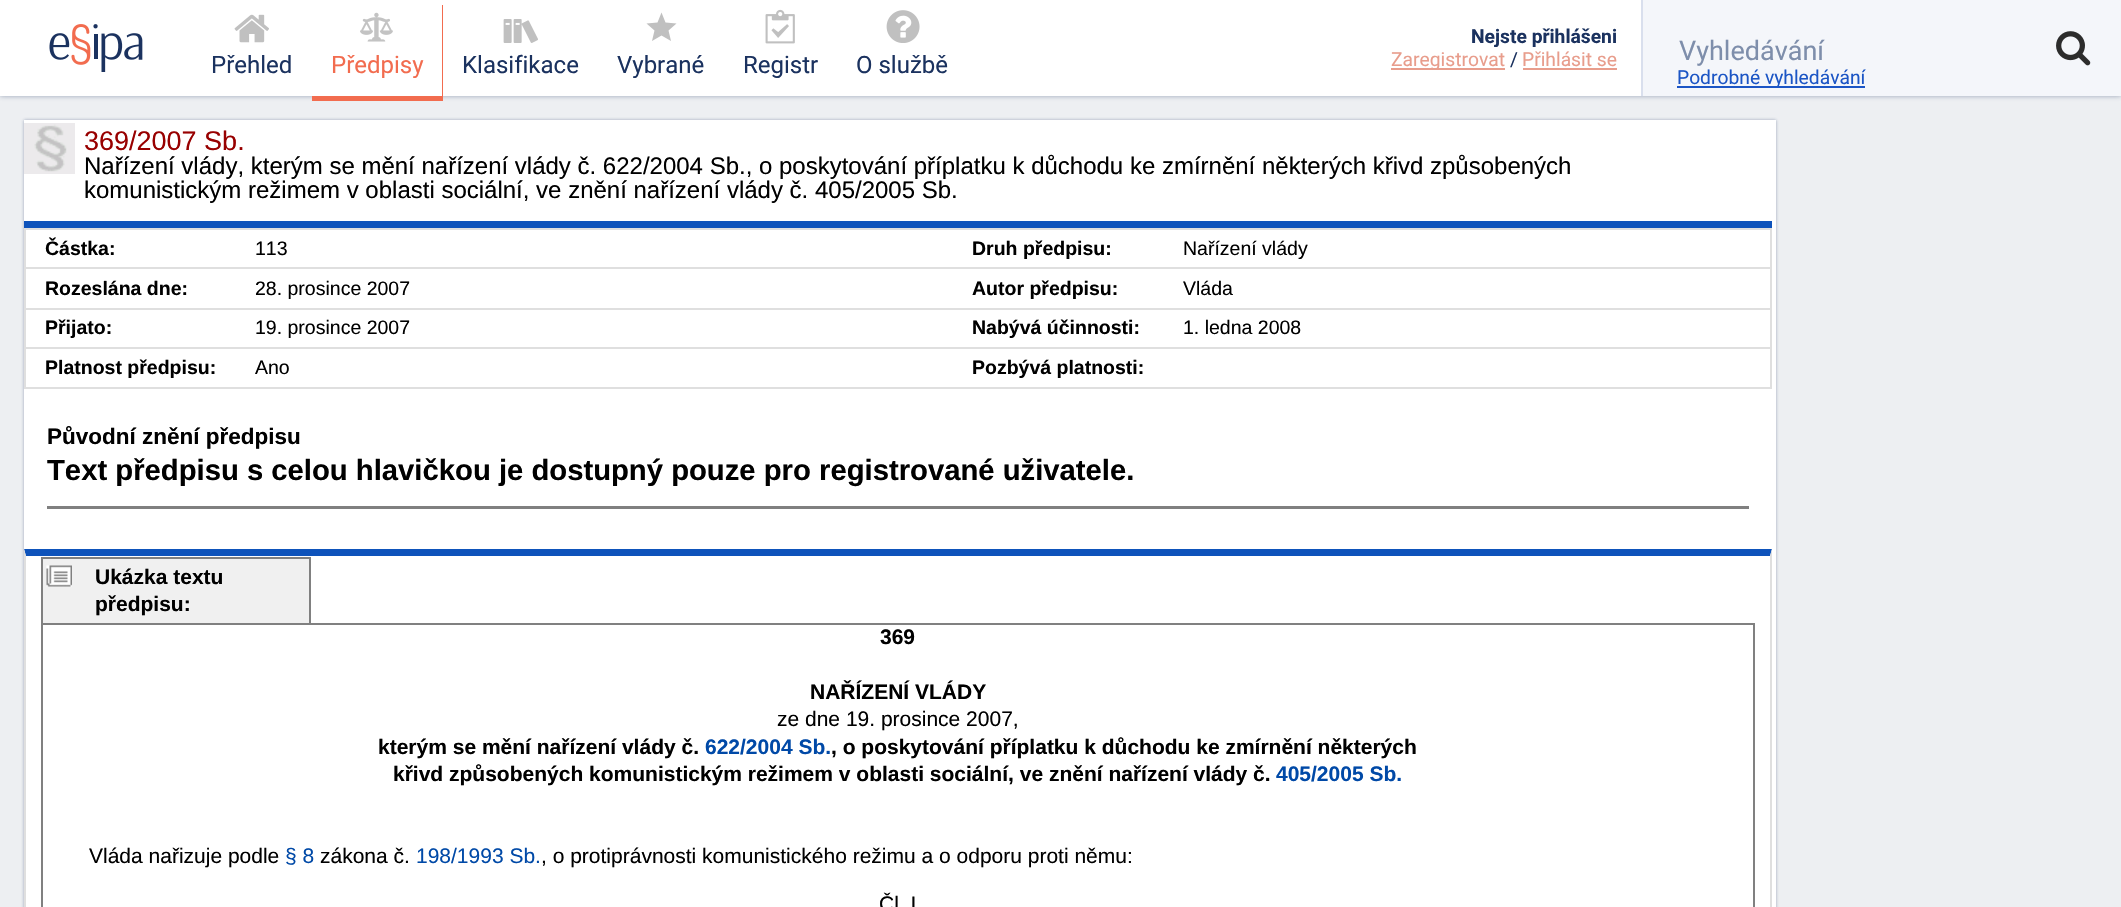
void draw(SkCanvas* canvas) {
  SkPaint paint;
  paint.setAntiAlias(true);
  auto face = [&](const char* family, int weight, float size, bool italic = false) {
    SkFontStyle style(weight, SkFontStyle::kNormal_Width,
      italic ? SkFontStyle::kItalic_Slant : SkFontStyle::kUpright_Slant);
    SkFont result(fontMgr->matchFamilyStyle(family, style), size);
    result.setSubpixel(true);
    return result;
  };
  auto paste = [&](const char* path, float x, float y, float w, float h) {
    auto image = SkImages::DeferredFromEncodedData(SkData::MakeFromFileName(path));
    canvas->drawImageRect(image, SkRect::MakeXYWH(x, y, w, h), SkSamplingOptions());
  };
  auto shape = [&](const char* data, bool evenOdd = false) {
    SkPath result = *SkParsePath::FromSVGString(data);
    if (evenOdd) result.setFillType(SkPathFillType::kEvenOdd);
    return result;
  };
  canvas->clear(0xffedeff2);
  paint.setColor(0x661b325f);
  paint.setMaskFilter(SkMaskFilter::MakeBlur(kNormal_SkBlurStyle, 2.5f));
  canvas->drawRect(SkRect::MakeXYWH(0, 0, 2121, 96), paint);
  paint.setMaskFilter(nullptr);
  paint.setColor(0xffffffff);
  canvas->drawRect(SkRect::MakeXYWH(0, 0, 1641, 96), paint);
  paste("img/1.png", 49, 24, 94, 48);
  paste("img/2.png", 234, 14, 35, 29);
  paint.setColor(0xfff26c4f);
  canvas->drawPath(shape("M312 96V101H443V5H442V96Z"), paint);
  paste("img/3.png", 360, 12, 33, 30);
  paste("img/4.png", 503, 19, 35, 24);
  paint.setColor(0xffc0c0c0);
  canvas->drawPath(shape("M661.5 35.5L652 41L654.5 30.5L646.5 23.5L657.5 22.5L661.5 12.5L665.5 22.5L676.5 23.5L668.5 30.5L671 41Z"), paint);
  paste("img/5.png", 765, 9, 30, 35);
  paste("img/6.png", 886, 10, 34, 33);
  {
    const struct { float x, y, w, h; SkColor color; } items[] = {
      {1391, 68, 114, 2, 0xffe89d8c},
      {1523, 68, 94, 2, 0xffe89d8c},
      {1641, 0, 2, 96, 0xffd9dfed},
      {1643, 0, 478, 96, 0xfff4f6fa},
    };
    for (auto [x, y, w, h, color] : items) {
      paint.setColor(color);
      canvas->drawRect(SkRect::MakeXYWH(x, y, w, h), paint);
    }
  }
  paste("img/7.png", 2056, 31, 35, 35);
  paint.setColor(0xff1b55c5);
  canvas->drawRect(SkRect::MakeXYWH(1677, 86, 188, 2), paint);
  paint.setColor(0x661b325f);
  paint.setMaskFilter(SkMaskFilter::MakeBlur(kNormal_SkBlurStyle, 1.5f));
  canvas->drawRect(SkRect::MakeXYWH(24, 120, 1752, 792), paint);
  paint.setMaskFilter(nullptr);
  paint.setColor(0xffffffff);
  canvas->drawRect(SkRect::MakeXYWH(24, 120, 1752, 787), paint);
  paste("img/8.png", 24, 123, 51, 51);
  {
    const struct { float x, y, w, h; SkColor color; } items[] = {
      {24, 221, 1748, 7, 0xff0e53bb},
      {24, 228, 1748, 2, 0xffdfdfdf},
      {1770, 228, 2, 161, 0xffdfdfdf},
      {24, 387, 1748, 2, 0xffdfdfdf},
      {24, 228, 2, 161, 0xffdfdfdf},
      {24, 267, 1748, 2, 0xffdfdfdf},
      {24, 308, 1748, 2, 0xffdfdfdf},
      {24, 347, 1748, 2, 0xffdfdfdf},
      {47, 506, 1702, 3, 0xff808080},
    };
    for (auto [x, y, w, h, color] : items) {
      paint.setColor(color);
      canvas->drawRect(SkRect::MakeXYWH(x, y, w, h), paint);
    }
  }
  paint.setColor(0xff0e53bb);
  canvas->drawPath(shape("M24 549H1772L1770 556H26Z"), paint);
  paint.setColor(0xffdfdfdf);
  canvas->drawPath(shape("M1772 549V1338L1770 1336V556Z"), paint);
  canvas->drawPath(shape("M24 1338V549L26 556V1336Z"), paint);
  paint.setColor(0xfff0f0f0);
  canvas->drawRect(SkRect::MakeXYWH(43, 559, 266, 64), paint);
  paste("img/9.png", 46, 565, 26, 22);
  {
    const struct { float x, y, w, h; SkColor color; } items[] = {
      {41, 557, 270, 2, 0xff808080},
      {309, 557, 2, 66, 0xff808080},
      {41, 557, 2, 66, 0xff808080},
    };
    for (auto [x, y, w, h, color] : items) {
      paint.setColor(color);
      canvas->drawRect(SkRect::MakeXYWH(x, y, w, h), paint);
    }
  }
  paint.setStroke(true);
  paint.setStrokeWidth(2);
  canvas->drawRect(SkRect::MakeXYWH(42, 624, 1712, 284), paint);
  auto f0 = face("Roboto", 400, 24);
  paint.setStroke(false);
  paint.setColor(0xff1b325f);
  canvas->drawString("Přehled", 211, 73, f0, paint);
  paint.setColor(0xfff26c4f);
  canvas->drawString("Předpisy", 331, 73, f0, paint);
  paint.setColor(0xff1b325f);
  {
    const struct { const char* s; float x, y; } items[] = {
      {"Klasifikace", 462, 73},
      {"Vybrané", 617, 73},
      {"Registr", 743, 73},
      {"O službě", 856, 73},
    };
    for (auto [s, x, y] : items) {
      canvas->drawString(s, x, y, f0, paint);
    }
  }
  auto f1 = face("Roboto", 700, 19.25f);
  canvas->drawString("Nejste přihlášeni", 1471, 43, f1, paint);
  auto f2 = face("Roboto", 400, 19.25f);
  paint.setColor(0xffe89d8c);
  canvas->drawString("Zaregistrovat", 1391, 66, f2, paint);
  paint.setColor(0xff1b325f);
  canvas->drawString("/", 1510, 66, f2, paint);
  paint.setColor(0xffe89d8c);
  canvas->drawString("Přihlásit se", 1522, 66, f2, paint);
  auto f3 = face("Roboto", 400, 27);
  paint.setColor(0xff7e8eab);
  canvas->drawString("Vyhledávání", 1679, 60, f3, paint);
  paint.setColor(0xff1b55c5);
  canvas->drawString("Podrobné vyhledávání", 1677, 84, f2, paint);
  auto f4 = face("Liberation Sans", 400, 27);
  paint.setColor(0xff980000);
  canvas->drawString("369/2007 Sb.", 84, 150, f4, paint);
  auto f5 = face("Liberation Sans", 400, 24);
  paint.setColor(0xff000000);
  canvas->drawString("Nařízení vlády, kterým se mění nařízení vlády č. 622/2004 Sb., o poskytování příplatku k důchodu ke zmírnění některých křivd způsobených", 84, 174, f5, paint);
  canvas->drawString("komunistickým režimem v oblasti sociální, ve znění nařízení vlády č. 405/2005 Sb.", 84, 198, f5, paint);
  auto f6 = face("Liberation Sans", 700, 19.5f);
  canvas->drawString("Částka:", 45, 255, f6, paint);
  auto f7 = face("Liberation Sans", 400, 19.5f);
  canvas->drawString("113", 255, 255, f7, paint);
  canvas->drawString("Druh předpisu:", 972, 255, f6, paint);
  canvas->drawString("Nařízení vlády", 1183, 255, f7, paint);
  canvas->drawString("Rozeslána dne:", 45, 295, f6, paint);
  canvas->drawString("28. prosince 2007", 255, 295, f7, paint);
  canvas->drawString("Autor předpisu:", 972, 295, f6, paint);
  canvas->drawString("Vláda", 1183, 295, f7, paint);
  canvas->drawString("Přijato:", 45, 334, f6, paint);
  canvas->drawString("19. prosince 2007", 255, 334, f7, paint);
  canvas->drawString("Nabývá účinnosti:", 972, 334, f6, paint);
  canvas->drawString("1. ledna 2008", 1183, 334, f7, paint);
  canvas->drawString("Platnost předpisu:", 45, 374, f6, paint);
  canvas->drawString("Ano", 255, 374, f7, paint);
  canvas->drawString("Pozbývá platnosti:", 972, 374, f6, paint);
  auto f8 = face("Liberation Sans", 700, 22.5f);
  canvas->drawString("Původní znění předpisu", 47, 444, f8, paint);
  auto f9 = face("Liberation Sans", 700, 29.25f);
  canvas->drawString("Text předpisu s celou hlavičkou je dostupný pouze pro registrované uživatele.", 47, 480, f9, paint);
  auto f10 = face("Liberation Sans", 700, 21);
  {
    const struct { const char* s; float x, y; } items[] = {
      {"Ukázka textu", 95, 584},
      {"předpisu:", 95, 611},
      {"369", 880, 644},
      {"NAŘÍZENÍ VLÁDY", 810, 699},
    };
    for (auto [s, x, y] : items) {
      canvas->drawString(s, x, y, f10, paint);
    }
  }
  auto f11 = face("Liberation Sans", 400, 21);
  canvas->drawString("ze dne 19. prosince 2007,", 777, 726, f11, paint);
  canvas->drawString("kterým se mění nařízení vlády č.", 378, 754, f10, paint);
  paint.setColor(0xff0049a7);
  canvas->drawString("622/2004 Sb.", 705, 754, f10, paint);
  paint.setColor(0xff000000);
  canvas->drawString(", o poskytování příplatku k důchodu ke zmírnění některých", 831, 754, f10, paint);
  canvas->drawString("křivd způsobených komunistickým režimem v oblasti sociální, ve znění nařízení vlády č.", 393, 781, f10, paint);
  paint.setColor(0xff0049a7);
  canvas->drawString("405/2005 Sb.", 1276, 781, f10, paint);
  paint.setColor(0xff000000);
  canvas->drawString("Vláda nařizuje podle", 89, 863, f11, paint);
  paint.setColor(0xff0049a7);
  canvas->drawString("§ 8", 285, 863, f11, paint);
  paint.setColor(0xff000000);
  canvas->drawString("zákona č.", 320, 863, f11, paint);
  paint.setColor(0xff0049a7);
  canvas->drawString("198/1993 Sb.", 416, 863, f11, paint);
  paint.setColor(0xff000000);
  canvas->drawString(", o protiprávnosti komunistického režimu a o odporu proti němu:", 541, 863, f11, paint);
  canvas->drawString("Čl. I", 879, 911, f11, paint);
}
